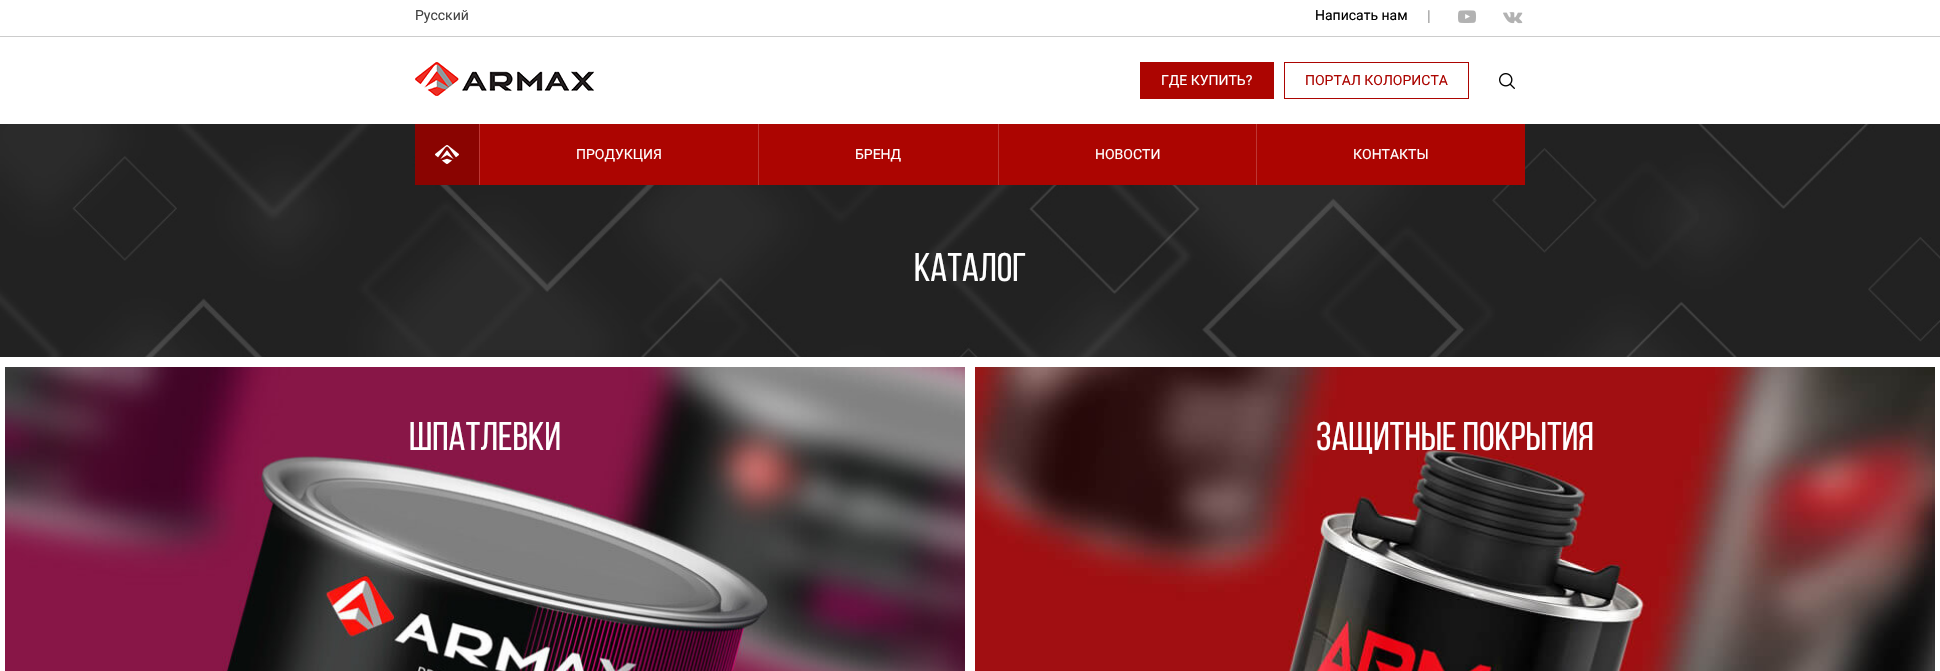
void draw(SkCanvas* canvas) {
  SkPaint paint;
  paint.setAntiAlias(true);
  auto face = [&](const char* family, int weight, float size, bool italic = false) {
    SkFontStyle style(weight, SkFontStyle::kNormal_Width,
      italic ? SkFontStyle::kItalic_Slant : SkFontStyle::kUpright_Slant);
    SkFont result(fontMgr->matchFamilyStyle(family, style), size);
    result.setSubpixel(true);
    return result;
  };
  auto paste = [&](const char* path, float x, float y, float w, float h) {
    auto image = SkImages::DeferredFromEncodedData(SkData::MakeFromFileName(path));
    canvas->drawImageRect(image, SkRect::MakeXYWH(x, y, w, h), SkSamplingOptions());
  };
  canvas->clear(0xffffffff);
  paint.setColor(0xffcccccc);
  canvas->drawRect(SkRect::MakeXYWH(0, 36, 1940, 1), paint);
  paste("img/1.png", 1458, 10, 18, 13);
  paste("img/2.png", 1503, 12, 20, 12);
  paste("img/3.png", 415, 62, 179, 34);
  paint.setColor(0xffac0501);
  canvas->drawRect(SkRect::MakeXYWH(1140, 62, 134, 37), paint);
  paint.setStroke(true);
  paint.setStrokeWidth(1);
  canvas->drawRect(SkRect::MakeXYWH(1284.5f, 62.5f, 184, 36), paint);
  paste("img/4.png", 1499, 73, 16, 16);
  paste("img/6.png", 0, 124, 1940, 233);
  paint.setStroke(false);
  canvas->drawRect(SkRect::MakeXYWH(480, 124, 1045, 61), paint);
  paint.setColor(0xff8a0401);
  canvas->drawRect(SkRect::MakeXYWH(415, 124, 64, 61), paint);
  paste("img/5.png", 435, 145, 24, 19);
  {
    const struct { float x, y, w, h; SkColor color; } items[] = {
      {479, 124, 1, 61, 0xffbd3734},
      {758, 124, 1, 61, 0xffbd3734},
      {998, 124, 1, 61, 0xffbd3734},
      {1256, 124, 1, 61, 0xffbd3734},
    };
    for (auto [x, y, w, h, color] : items) {
      paint.setColor(color);
      canvas->drawRect(SkRect::MakeXYWH(x, y, w, h), paint);
    }
  }
  paste("img/7.png", 5, 367, 960, 304);
  paste("img/8.png", 975, 367, 960, 304);
  auto f0 = face("Roboto", 400, 14);
  paint.setColor(0xff444444);
  canvas->drawString("Русский", 415, 20, f0, paint);
  paint.setColor(0xff000000);
  canvas->drawString("Написать нам", 1315, 20, f0, paint);
  auto f1 = face("Roboto", 400, 15);
  paint.setColor(0xff999999);
  canvas->drawString("|", 1427, 21, f1, paint);
  paint.setColor(0xffffffff);
  canvas->drawString("ГДЕ КУПИТЬ?", 1161, 85, f0, paint);
  paint.setColor(0xffac0501);
  canvas->drawString("ПОРТАЛ КОЛОРИСТА", 1305, 85, f0, paint);
  paint.setColor(0xffffffff);
  {
    const struct { const char* s; float x, y; } items[] = {
      {"ПРОДУКЦИЯ", 576, 159},
      {"БРЕНД", 855, 159},
      {"НОВОСТИ", 1095, 159},
      {"КОНТАКТЫ", 1353, 159},
    };
    for (auto [s, x, y] : items) {
      canvas->drawString(s, x, y, f0, paint);
    }
  }
  auto f2 = face("Bebas Neue", 400, 40);
  {
    const struct { const char* s; float x, y; } items[] = {
      {"КАТАЛОГ", 914, 281},
      {"ШПАТЛЕВКИ", 409, 450},
      {"ЗАЩИТНЫЕ ПОКРЫТИЯ", 1316, 450},
    };
    for (auto [s, x, y] : items) {
      canvas->drawString(s, x, y, f2, paint);
    }
  }
}
